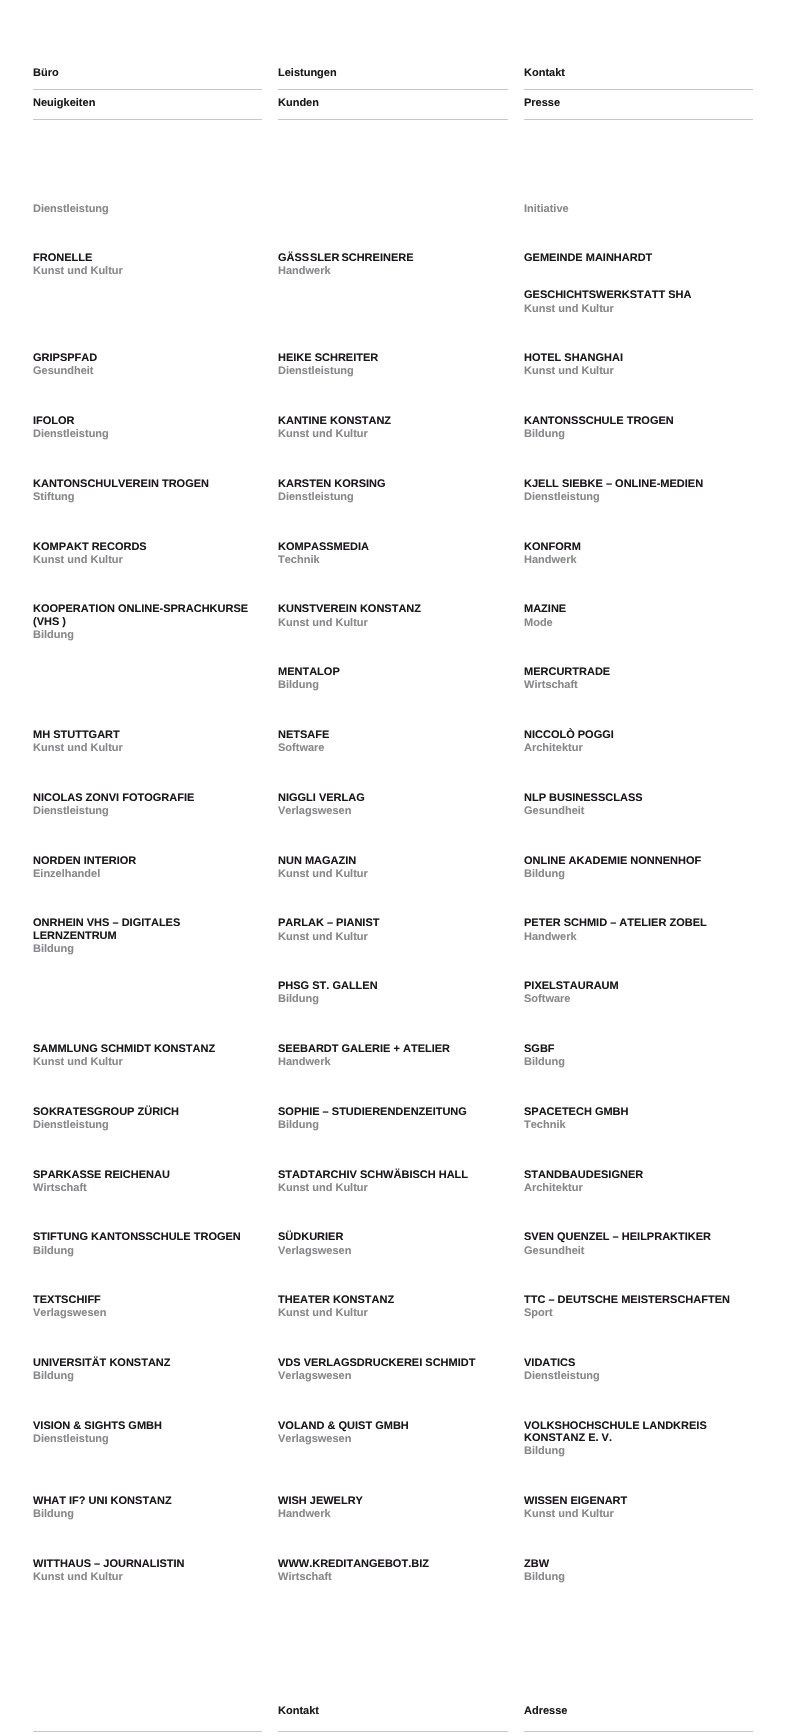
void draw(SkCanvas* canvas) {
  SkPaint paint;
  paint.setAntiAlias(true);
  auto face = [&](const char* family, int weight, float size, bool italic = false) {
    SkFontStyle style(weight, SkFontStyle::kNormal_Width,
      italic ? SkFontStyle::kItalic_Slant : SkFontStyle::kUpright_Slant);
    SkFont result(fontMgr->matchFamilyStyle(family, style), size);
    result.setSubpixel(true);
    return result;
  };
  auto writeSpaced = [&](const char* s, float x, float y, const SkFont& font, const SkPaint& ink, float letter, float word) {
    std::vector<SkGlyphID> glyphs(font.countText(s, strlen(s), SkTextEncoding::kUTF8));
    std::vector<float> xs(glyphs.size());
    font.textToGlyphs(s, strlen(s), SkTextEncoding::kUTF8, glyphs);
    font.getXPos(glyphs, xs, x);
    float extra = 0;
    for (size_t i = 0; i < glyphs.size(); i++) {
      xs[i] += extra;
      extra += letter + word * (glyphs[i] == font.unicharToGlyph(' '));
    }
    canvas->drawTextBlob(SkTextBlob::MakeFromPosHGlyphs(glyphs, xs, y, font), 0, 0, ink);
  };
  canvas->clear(0xffffffff);
  {
    const struct { float x, y, w, h; SkColor color; } items[] = {
      {33, 89, 229, 1, 0xffc6c7c8},
      {278, 89, 230, 1, 0xffc6c7c8},
      {524, 89, 229, 1, 0xffc6c7c8},
      {33, 119, 229, 1, 0xffc6c7c8},
      {278, 119, 230, 1, 0xffc6c7c8},
      {524, 119, 229, 1, 0xffc6c7c8},
      {278, 1731, 230, 1, 0xffc6c7c8},
      {524, 1731, 229, 1, 0xffc6c7c8},
      {33, 1731, 229, 1, 0xffc6c7c8},
    };
    for (auto [x, y, w, h, color] : items) {
      paint.setColor(color);
      canvas->drawRect(SkRect::MakeXYWH(x, y, w, h), paint);
    }
  }
  auto f0 = face("Liberation Sans", 700, 11);
  paint.setColor(0xff1a181b);
  {
    const struct { const char* s; float x, y; } items[] = {
      {"Büro", 33, 76},
      {"Leistungen", 278, 76},
      {"Kontakt", 524, 76},
      {"Neuigkeiten", 33, 106},
      {"Kunden", 278, 106},
      {"Presse", 524, 106},
    };
    for (auto [s, x, y] : items) {
      canvas->drawString(s, x, y, f0, paint);
    }
  }
  paint.setColor(0xff87888a);
  canvas->drawString("Dienstleistung", 33, 212, f0, paint);
  canvas->drawString("Initiative", 524, 212, f0, paint);
  paint.setColor(0xff1a181b);
  canvas->drawString("FRONELLE", 33, 261, f0, paint);
  paint.setColor(0xff87888a);
  canvas->drawString("Kunst und Kultur", 33, 274, f0, paint);
  paint.setColor(0xff1a181b);
  canvas->drawString("GÄSS", 278, 261, f0, paint);
  writeSpaced("SLER SCHREINERE", 310, 261, f0, paint, 0, -1);
  paint.setColor(0xff87888a);
  canvas->drawString("Handwerk", 278, 274, f0, paint);
  paint.setColor(0xff1a181b);
  canvas->drawString("GEMEINDE MAINHARDT", 524, 261, f0, paint);
  canvas->drawString("GESCHICHTSWERKSTATT SHA", 524, 298, f0, paint);
  paint.setColor(0xff87888a);
  canvas->drawString("Kunst und Kultur", 524, 312, f0, paint);
  paint.setColor(0xff1a181b);
  canvas->drawString("GRIPSPFAD", 33, 361, f0, paint);
  paint.setColor(0xff87888a);
  canvas->drawString("Gesundheit", 33, 374, f0, paint);
  paint.setColor(0xff1a181b);
  canvas->drawString("HEIKE SCHREITER", 278, 361, f0, paint);
  paint.setColor(0xff87888a);
  canvas->drawString("Dienstleistung", 278, 374, f0, paint);
  paint.setColor(0xff1a181b);
  canvas->drawString("HOTEL SHANGHAI", 524, 361, f0, paint);
  paint.setColor(0xff87888a);
  canvas->drawString("Kunst und Kultur", 524, 374, f0, paint);
  paint.setColor(0xff1a181b);
  canvas->drawString("IFOLOR", 33, 424, f0, paint);
  paint.setColor(0xff87888a);
  canvas->drawString("Dienstleistung", 33, 437, f0, paint);
  paint.setColor(0xff1a181b);
  canvas->drawString("KANTINE KONSTANZ", 278, 424, f0, paint);
  paint.setColor(0xff87888a);
  canvas->drawString("Kunst und Kultur", 278, 437, f0, paint);
  paint.setColor(0xff1a181b);
  canvas->drawString("KANTONSSCHULE TROGEN", 524, 424, f0, paint);
  paint.setColor(0xff87888a);
  canvas->drawString("Bildung", 524, 437, f0, paint);
  paint.setColor(0xff1a181b);
  canvas->drawString("KANTONSCHULVEREIN TROGEN", 33, 487, f0, paint);
  paint.setColor(0xff87888a);
  canvas->drawString("Stiftung", 33, 500, f0, paint);
  paint.setColor(0xff1a181b);
  canvas->drawString("KARSTEN KORSING", 278, 487, f0, paint);
  paint.setColor(0xff87888a);
  canvas->drawString("Dienstleistung", 278, 500, f0, paint);
  paint.setColor(0xff1a181b);
  canvas->drawString("KJELL SIEBKE – ONLINE-MEDIEN", 524, 487, f0, paint);
  paint.setColor(0xff87888a);
  canvas->drawString("Dienstleistung", 524, 500, f0, paint);
  paint.setColor(0xff1a181b);
  canvas->drawString("KOMPAKT RECORDS", 33, 550, f0, paint);
  paint.setColor(0xff87888a);
  canvas->drawString("Kunst und Kultur", 33, 563, f0, paint);
  paint.setColor(0xff1a181b);
  canvas->drawString("KOMPASSMEDIA", 278, 550, f0, paint);
  paint.setColor(0xff87888a);
  canvas->drawString("Technik", 278, 563, f0, paint);
  paint.setColor(0xff1a181b);
  canvas->drawString("KONFORM", 524, 550, f0, paint);
  paint.setColor(0xff87888a);
  canvas->drawString("Handwerk", 524, 563, f0, paint);
  paint.setColor(0xff1a181b);
  canvas->drawString("KOOPERATION ONLINE-SPRACHKURSE", 33, 612, f0, paint);
  canvas->drawString("(VHS )", 33, 625, f0, paint);
  paint.setColor(0xff87888a);
  canvas->drawString("Bildung", 33, 638, f0, paint);
  paint.setColor(0xff1a181b);
  canvas->drawString("KUNSTVEREIN KONSTANZ", 278, 612, f0, paint);
  paint.setColor(0xff87888a);
  canvas->drawString("Kunst und Kultur", 278, 626, f0, paint);
  paint.setColor(0xff1a181b);
  canvas->drawString("MAZINE", 524, 612, f0, paint);
  paint.setColor(0xff87888a);
  canvas->drawString("Mode", 524, 626, f0, paint);
  paint.setColor(0xff1a181b);
  canvas->drawString("MENTALOP", 278, 675, f0, paint);
  paint.setColor(0xff87888a);
  canvas->drawString("Bildung", 278, 688, f0, paint);
  paint.setColor(0xff1a181b);
  canvas->drawString("MERCURTRADE", 524, 675, f0, paint);
  paint.setColor(0xff87888a);
  canvas->drawString("Wirtschaft", 524, 688, f0, paint);
  paint.setColor(0xff1a181b);
  canvas->drawString("MH STUTTGART", 33, 738, f0, paint);
  paint.setColor(0xff87888a);
  canvas->drawString("Kunst und Kultur", 33, 751, f0, paint);
  paint.setColor(0xff1a181b);
  canvas->drawString("NETSAFE", 278, 738, f0, paint);
  paint.setColor(0xff87888a);
  canvas->drawString("Software", 278, 751, f0, paint);
  paint.setColor(0xff1a181b);
  canvas->drawString("NICCOLÒ POGGI", 524, 738, f0, paint);
  paint.setColor(0xff87888a);
  canvas->drawString("Architektur", 524, 751, f0, paint);
  paint.setColor(0xff1a181b);
  canvas->drawString("NICOLAS ZONVI FOTOGRAFIE", 33, 801, f0, paint);
  paint.setColor(0xff87888a);
  canvas->drawString("Dienstleistung", 33, 814, f0, paint);
  paint.setColor(0xff1a181b);
  canvas->drawString("NIGGLI VERLAG", 278, 801, f0, paint);
  paint.setColor(0xff87888a);
  canvas->drawString("Verlagswesen", 278, 814, f0, paint);
  paint.setColor(0xff1a181b);
  canvas->drawString("NLP BUSINESSCLASS", 524, 801, f0, paint);
  paint.setColor(0xff87888a);
  canvas->drawString("Gesundheit", 524, 814, f0, paint);
  paint.setColor(0xff1a181b);
  canvas->drawString("NORDEN INTERIOR", 33, 864, f0, paint);
  paint.setColor(0xff87888a);
  canvas->drawString("Einzelhandel", 33, 877, f0, paint);
  paint.setColor(0xff1a181b);
  canvas->drawString("NUN MAGAZIN", 278, 864, f0, paint);
  paint.setColor(0xff87888a);
  canvas->drawString("Kunst und Kultur", 278, 877, f0, paint);
  paint.setColor(0xff1a181b);
  canvas->drawString("ONLINE AKADEMIE NONNENHOF", 524, 864, f0, paint);
  paint.setColor(0xff87888a);
  canvas->drawString("Bildung", 524, 877, f0, paint);
  paint.setColor(0xff1a181b);
  canvas->drawString("ONRHEIN VHS – DIGITALES", 33, 926, f0, paint);
  canvas->drawString("LERNZENTRUM", 33, 939, f0, paint);
  paint.setColor(0xff87888a);
  canvas->drawString("Bildung", 33, 952, f0, paint);
  paint.setColor(0xff1a181b);
  canvas->drawString("PARLAK – PIANIST", 278, 926, f0, paint);
  paint.setColor(0xff87888a);
  canvas->drawString("Kunst und Kultur", 278, 940, f0, paint);
  paint.setColor(0xff1a181b);
  canvas->drawString("PETER SCHMID – ATELIER ZOBEL", 524, 926, f0, paint);
  paint.setColor(0xff87888a);
  canvas->drawString("Handwerk", 524, 940, f0, paint);
  paint.setColor(0xff1a181b);
  canvas->drawString("PHSG ST. GALLEN", 278, 989, f0, paint);
  paint.setColor(0xff87888a);
  canvas->drawString("Bildung", 278, 1002, f0, paint);
  paint.setColor(0xff1a181b);
  canvas->drawString("PIXELSTAURAUM", 524, 989, f0, paint);
  paint.setColor(0xff87888a);
  canvas->drawString("Software", 524, 1002, f0, paint);
  paint.setColor(0xff1a181b);
  canvas->drawString("SAMMLUNG SCHMIDT KONSTANZ", 33, 1052, f0, paint);
  paint.setColor(0xff87888a);
  canvas->drawString("Kunst und Kultur", 33, 1065, f0, paint);
  paint.setColor(0xff1a181b);
  canvas->drawString("SEEBARDT GALERIE + ATELIER", 278, 1052, f0, paint);
  paint.setColor(0xff87888a);
  canvas->drawString("Handwerk", 278, 1065, f0, paint);
  paint.setColor(0xff1a181b);
  canvas->drawString("SGBF", 524, 1052, f0, paint);
  paint.setColor(0xff87888a);
  canvas->drawString("Bildung", 524, 1065, f0, paint);
  paint.setColor(0xff1a181b);
  canvas->drawString("SOKRATESGROUP ZÜRICH", 33, 1115, f0, paint);
  paint.setColor(0xff87888a);
  canvas->drawString("Dienstleistung", 33, 1128, f0, paint);
  paint.setColor(0xff1a181b);
  canvas->drawString("SOPHIE – STUDIERENDENZEITUNG", 278, 1115, f0, paint);
  paint.setColor(0xff87888a);
  canvas->drawString("Bildung", 278, 1128, f0, paint);
  paint.setColor(0xff1a181b);
  canvas->drawString("SPACETECH GMBH", 524, 1115, f0, paint);
  paint.setColor(0xff87888a);
  canvas->drawString("Technik", 524, 1128, f0, paint);
  paint.setColor(0xff1a181b);
  canvas->drawString("SPARKASSE REICHENAU", 33, 1178, f0, paint);
  paint.setColor(0xff87888a);
  canvas->drawString("Wirtschaft", 33, 1191, f0, paint);
  paint.setColor(0xff1a181b);
  canvas->drawString("STADTARCHIV SCHWÄBISCH HALL", 278, 1178, f0, paint);
  paint.setColor(0xff87888a);
  canvas->drawString("Kunst und Kultur", 278, 1191, f0, paint);
  paint.setColor(0xff1a181b);
  canvas->drawString("STANDBAUDESIGNER", 524, 1178, f0, paint);
  paint.setColor(0xff87888a);
  canvas->drawString("Architektur", 524, 1191, f0, paint);
  paint.setColor(0xff1a181b);
  canvas->drawString("STIFTUNG KANTONSSCHULE TROGEN", 33, 1240, f0, paint);
  paint.setColor(0xff87888a);
  canvas->drawString("Bildung", 33, 1254, f0, paint);
  paint.setColor(0xff1a181b);
  canvas->drawString("SÜDKURIER", 278, 1240, f0, paint);
  paint.setColor(0xff87888a);
  canvas->drawString("Verlagswesen", 278, 1254, f0, paint);
  paint.setColor(0xff1a181b);
  canvas->drawString("SVEN QUENZEL – HEILPRAKTIKER", 524, 1240, f0, paint);
  paint.setColor(0xff87888a);
  canvas->drawString("Gesundheit", 524, 1254, f0, paint);
  paint.setColor(0xff1a181b);
  canvas->drawString("TEXTSCHIFF", 33, 1303, f0, paint);
  paint.setColor(0xff87888a);
  canvas->drawString("Verlagswesen", 33, 1316, f0, paint);
  paint.setColor(0xff1a181b);
  canvas->drawString("THEATER KONSTANZ", 278, 1303, f0, paint);
  paint.setColor(0xff87888a);
  canvas->drawString("Kunst und Kultur", 278, 1316, f0, paint);
  paint.setColor(0xff1a181b);
  canvas->drawString("TTC – DEUTSCHE MEISTERSCHAFTEN", 524, 1303, f0, paint);
  paint.setColor(0xff87888a);
  canvas->drawString("Sport", 524, 1316, f0, paint);
  paint.setColor(0xff1a181b);
  canvas->drawString("UNIVERSITÄT KONSTANZ", 33, 1366, f0, paint);
  paint.setColor(0xff87888a);
  canvas->drawString("Bildung", 33, 1379, f0, paint);
  paint.setColor(0xff1a181b);
  canvas->drawString("VDS VERLAGSDRUCKEREI SCHMIDT", 278, 1366, f0, paint);
  paint.setColor(0xff87888a);
  canvas->drawString("Verlagswesen", 278, 1379, f0, paint);
  paint.setColor(0xff1a181b);
  canvas->drawString("VIDATICS", 524, 1366, f0, paint);
  paint.setColor(0xff87888a);
  canvas->drawString("Dienstleistung", 524, 1379, f0, paint);
  paint.setColor(0xff1a181b);
  canvas->drawString("VISION & SIGHTS GMBH", 33, 1429, f0, paint);
  paint.setColor(0xff87888a);
  canvas->drawString("Dienstleistung", 33, 1442, f0, paint);
  paint.setColor(0xff1a181b);
  canvas->drawString("VOLAND & QUIST GMBH", 278, 1429, f0, paint);
  paint.setColor(0xff87888a);
  canvas->drawString("Verlagswesen", 278, 1442, f0, paint);
  paint.setColor(0xff1a181b);
  canvas->drawString("VOLKSHOCHSCHULE LANDKREIS", 524, 1429, f0, paint);
  canvas->drawString("KONSTANZ E. V.", 524, 1441, f0, paint);
  paint.setColor(0xff87888a);
  canvas->drawString("Bildung", 524, 1454, f0, paint);
  paint.setColor(0xff1a181b);
  canvas->drawString("WHAT IF? UNI KONSTANZ", 33, 1504, f0, paint);
  paint.setColor(0xff87888a);
  canvas->drawString("Bildung", 33, 1517, f0, paint);
  paint.setColor(0xff1a181b);
  canvas->drawString("WISH JEWELRY", 278, 1504, f0, paint);
  paint.setColor(0xff87888a);
  canvas->drawString("Handwerk", 278, 1517, f0, paint);
  paint.setColor(0xff1a181b);
  canvas->drawString("WISSEN EIGENART", 524, 1504, f0, paint);
  paint.setColor(0xff87888a);
  canvas->drawString("Kunst und Kultur", 524, 1517, f0, paint);
  paint.setColor(0xff1a181b);
  canvas->drawString("WITTHAUS – JOURNALISTIN", 33, 1567, f0, paint);
  paint.setColor(0xff87888a);
  canvas->drawString("Kunst und Kultur", 33, 1580, f0, paint);
  paint.setColor(0xff1a181b);
  canvas->drawString("WWW.KREDITANGEBOT.BIZ", 278, 1567, f0, paint);
  paint.setColor(0xff87888a);
  canvas->drawString("Wirtschaft", 278, 1580, f0, paint);
  paint.setColor(0xff1a181b);
  canvas->drawString("ZBW", 524, 1567, f0, paint);
  paint.setColor(0xff87888a);
  canvas->drawString("Bildung", 524, 1580, f0, paint);
  paint.setColor(0xff1a181b);
  canvas->drawString("Kontakt", 278, 1714, f0, paint);
  canvas->drawString("Adresse", 524, 1714, f0, paint);
}
